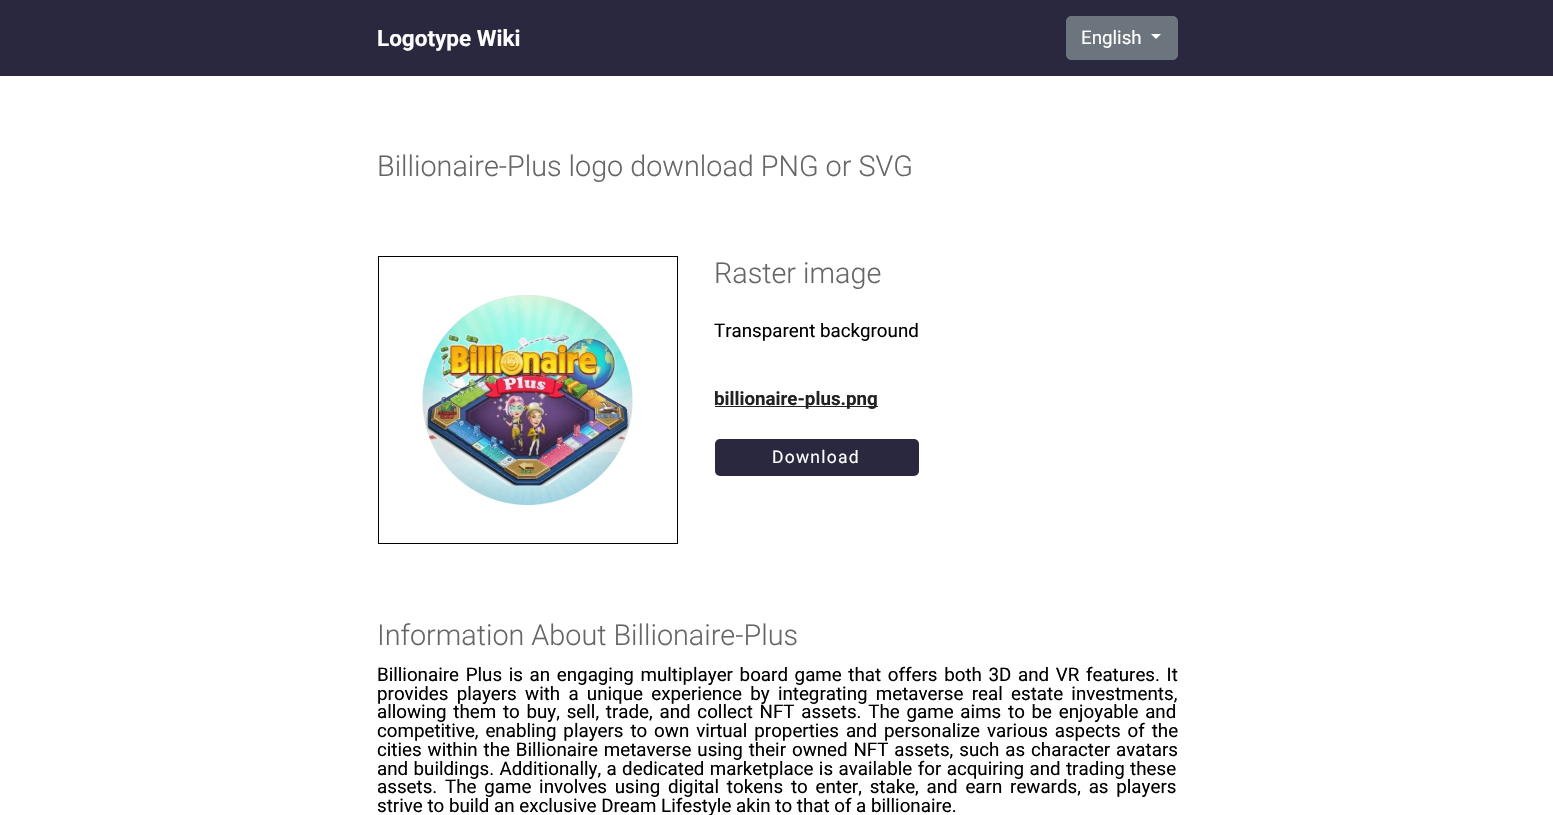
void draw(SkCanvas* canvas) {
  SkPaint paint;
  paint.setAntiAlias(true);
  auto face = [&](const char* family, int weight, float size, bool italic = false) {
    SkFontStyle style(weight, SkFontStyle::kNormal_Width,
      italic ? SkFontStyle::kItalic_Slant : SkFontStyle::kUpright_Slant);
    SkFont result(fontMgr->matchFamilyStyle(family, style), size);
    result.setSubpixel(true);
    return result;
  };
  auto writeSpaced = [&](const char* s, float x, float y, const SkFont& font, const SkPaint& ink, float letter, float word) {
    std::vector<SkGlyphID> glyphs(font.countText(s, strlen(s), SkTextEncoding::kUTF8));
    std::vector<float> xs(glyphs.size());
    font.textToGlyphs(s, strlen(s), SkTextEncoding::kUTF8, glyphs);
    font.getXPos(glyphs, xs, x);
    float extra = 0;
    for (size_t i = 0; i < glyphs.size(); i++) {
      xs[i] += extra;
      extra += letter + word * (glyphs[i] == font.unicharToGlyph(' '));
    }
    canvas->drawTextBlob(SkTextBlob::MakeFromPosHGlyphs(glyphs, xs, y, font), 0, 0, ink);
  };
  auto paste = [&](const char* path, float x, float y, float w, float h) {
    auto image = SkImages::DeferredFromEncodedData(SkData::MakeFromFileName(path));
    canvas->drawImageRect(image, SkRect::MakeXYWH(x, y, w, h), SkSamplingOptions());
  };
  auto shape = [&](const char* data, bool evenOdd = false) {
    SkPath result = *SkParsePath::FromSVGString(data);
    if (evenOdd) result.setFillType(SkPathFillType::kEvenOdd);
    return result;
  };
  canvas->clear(0xffffffff);
  paint.setColor(0xff2a283f);
  canvas->drawRect(SkRect::MakeXYWH(0, 0, 1553, 76), paint);
  paint.setColor(0xff6c757d);
  canvas->drawRoundRect(SkRect::MakeXYWH(1066.5f, 16.5f, 111, 43), 4.5f, 4.5f, paint);
  paint.setStroke(true);
  paint.setStrokeWidth(1);
  canvas->drawRoundRect(SkRect::MakeXYWH(1066.5f, 16.5f, 111, 43), 4.5f, 4.5f, paint);
  paint.setStroke(false);
  paint.setColor(0xffffffff);
  canvas->drawPath(shape("M1151 34H1161L1156 39Z"), paint);
  paint.setStroke(true);
  paint.setColor(0xff000000);
  canvas->drawRect(SkRect::MakeXYWH(378.5f, 256.5f, 299, 287), paint);
  paste("img/1.png", 422, 295, 211, 210);
  paint.setStroke(false);
  paint.setColor(0xff222222);
  canvas->drawRect(SkRect::MakeXYWH(715, 406, 163, 1), paint);
  paint.setColor(0xff2a283f);
  canvas->drawRoundRect(SkRect::MakeXYWH(715, 439, 204, 37), 5, 5, paint);
  auto f0 = face("Roboto", 700, 22.5f);
  paint.setColor(0xffffffff);
  canvas->drawString("Logotype Wiki", 377, 46, f0, paint);
  auto f1 = face("Roboto", 400, 18.75f);
  canvas->drawString("English", 1081, 44, f1, paint);
  auto f2 = face("Roboto", 300, 28.75f);
  paint.setColor(0xff666666);
  canvas->drawString("Billionaire-Plus logo download PNG or SVG", 377, 176, f2, paint);
  canvas->drawString("Raster image", 714, 283, f2, paint);
  paint.setColor(0xff000000);
  canvas->drawString("Transparent background", 714, 337, f1, paint);
  auto f3 = face("Roboto", 700, 18.75f);
  paint.setColor(0xff222222);
  canvas->drawString("billionaire-plus.png", 714, 405, f3, paint);
  auto f4 = face("Roboto", 400, 17.5f);
  paint.setColor(0xffffffff);
  writeSpaced("Download", 772, 463, f4, paint, 1.25f, 0);
  paint.setColor(0xff666666);
  canvas->drawString("Information About Billionaire-Plus", 377, 645, f2, paint);
  paint.setColor(0xff000000);
  writeSpaced("Billionaire Plus is an engaging multiplayer board game that offers both 3D and VR features. It", 377, 681, f1, paint, 0, 2);
  writeSpaced("provides players with a unique experience by integrating metaverse real estate investments,", 377, 700, f1, paint, 0, 3.6f);
  writeSpaced("allowing them to buy, sell, trade, and collect NFT assets. The game aims to be enjoyable and", 377, 718, f1, paint, 0, 2.1f);
  writeSpaced("competitive, enabling players to own virtual properties and personalize various aspects of the", 377, 737, f1, paint, 0, 2.25f);
  writeSpaced("cities within the Billionaire metaverse using their owned NFT assets, such as character avatars", 377, 756, f1, paint, 0, 1.25f);
  writeSpaced("and buildings. Additionally, a dedicated marketplace is available for acquiring and trading these", 377, 775, f1, paint, 0, 0.75f);
  writeSpaced("assets. The game involves using digital tokens to enter, stake, and earn rewards, as players", 377, 793, f1, paint, 0, 3.1f);
  canvas->drawString("strive to build an exclusive Dream Lifestyle akin to that of a billionaire.", 377, 812, f1, paint);
}
